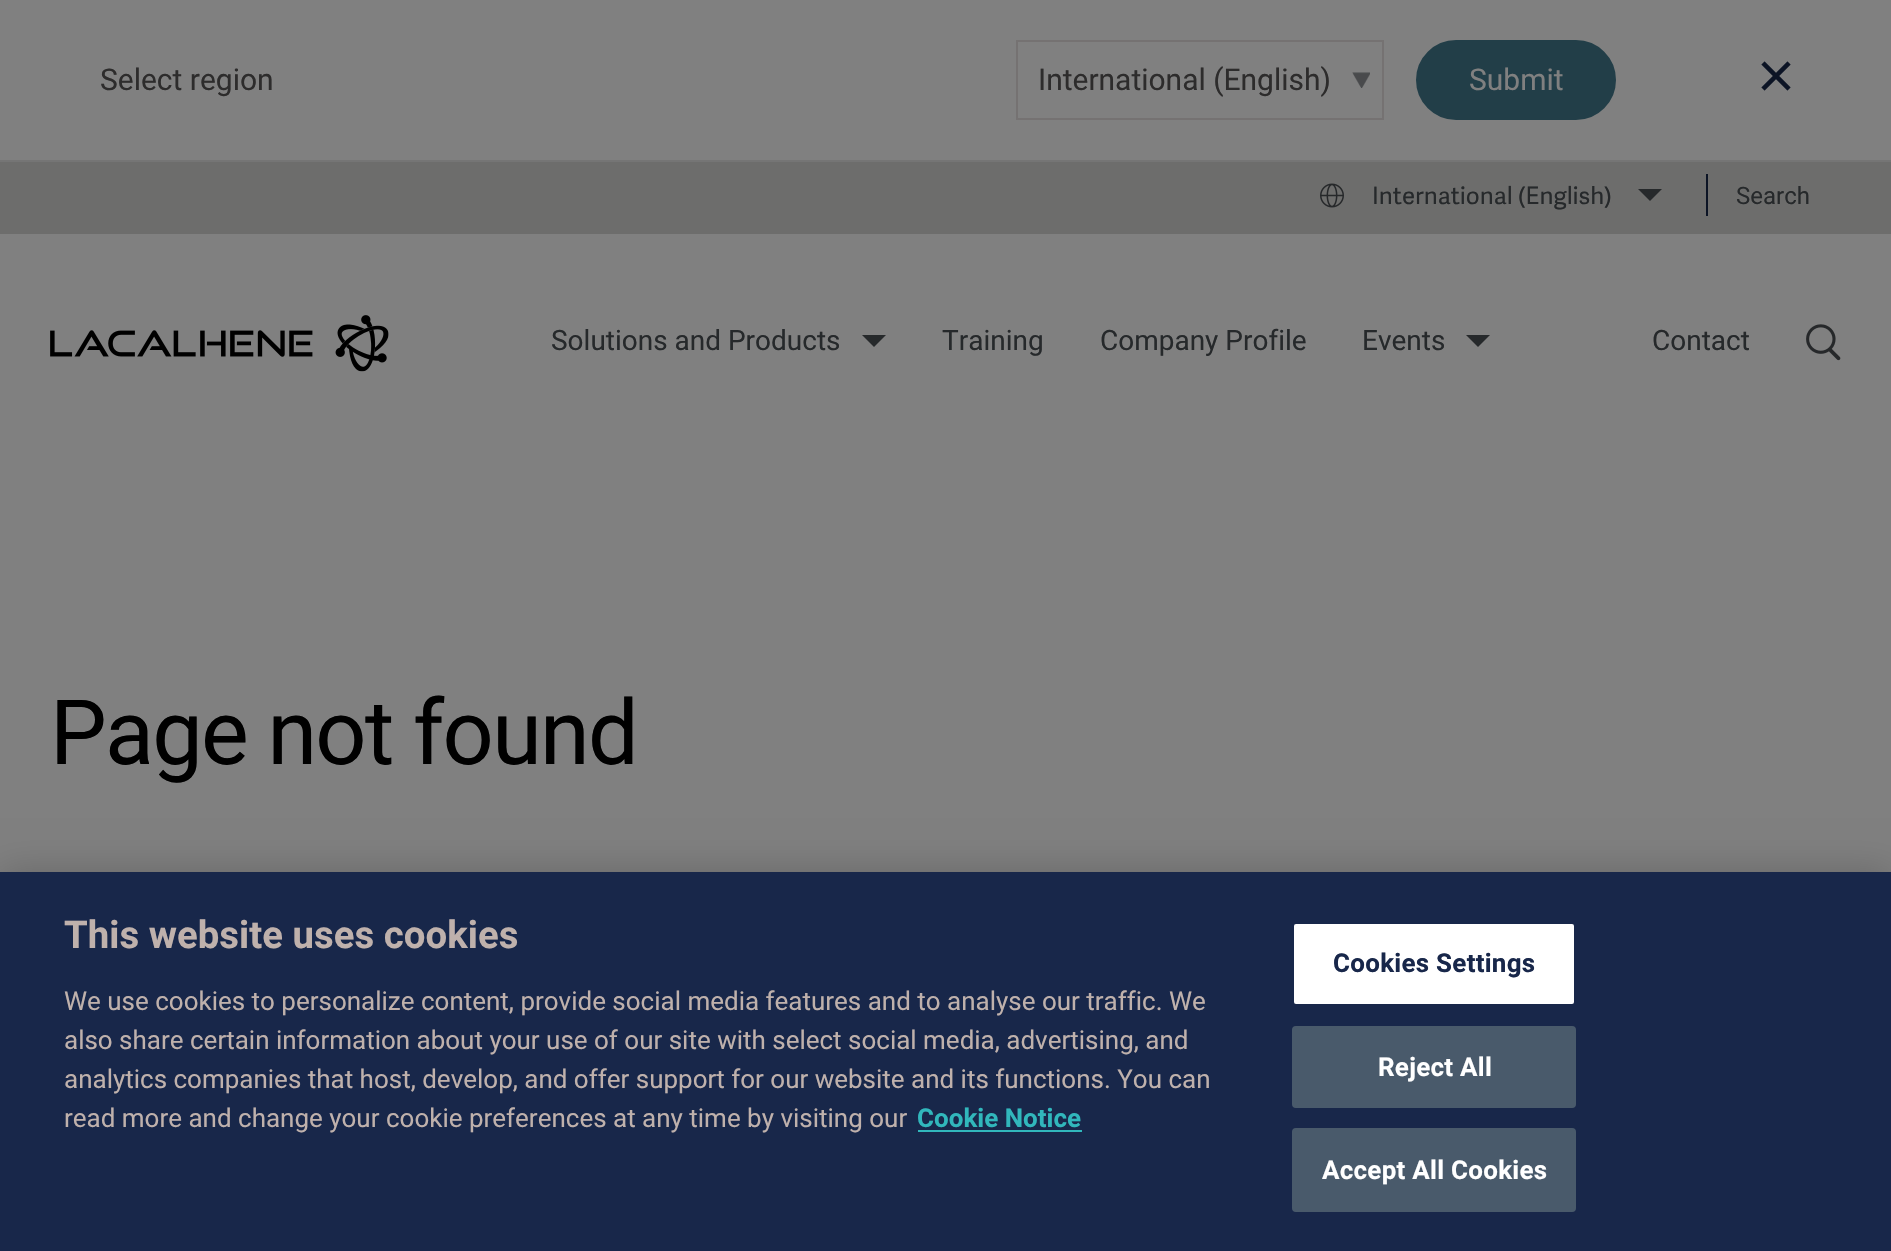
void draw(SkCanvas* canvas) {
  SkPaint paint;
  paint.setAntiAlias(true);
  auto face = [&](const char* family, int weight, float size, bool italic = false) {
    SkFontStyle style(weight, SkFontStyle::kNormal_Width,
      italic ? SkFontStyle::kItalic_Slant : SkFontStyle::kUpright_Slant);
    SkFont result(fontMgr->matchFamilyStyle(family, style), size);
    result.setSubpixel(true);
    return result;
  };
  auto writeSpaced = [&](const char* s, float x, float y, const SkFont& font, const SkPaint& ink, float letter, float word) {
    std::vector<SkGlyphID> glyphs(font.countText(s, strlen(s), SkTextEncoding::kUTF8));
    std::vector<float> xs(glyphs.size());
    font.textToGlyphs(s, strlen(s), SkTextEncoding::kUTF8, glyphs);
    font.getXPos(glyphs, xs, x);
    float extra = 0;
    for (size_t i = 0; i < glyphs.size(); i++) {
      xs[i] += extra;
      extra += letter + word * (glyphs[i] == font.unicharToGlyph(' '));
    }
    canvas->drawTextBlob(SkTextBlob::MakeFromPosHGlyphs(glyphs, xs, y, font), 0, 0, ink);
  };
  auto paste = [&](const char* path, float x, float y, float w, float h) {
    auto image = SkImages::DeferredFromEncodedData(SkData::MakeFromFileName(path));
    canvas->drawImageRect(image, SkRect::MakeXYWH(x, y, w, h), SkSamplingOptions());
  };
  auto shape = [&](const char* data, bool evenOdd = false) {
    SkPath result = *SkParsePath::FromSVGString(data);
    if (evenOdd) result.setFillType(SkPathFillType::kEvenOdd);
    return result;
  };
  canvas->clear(0xff808080);
  paint.setColor(0xff757575);
  canvas->drawRect(SkRect::MakeXYWH(0, 160, 1891, 2), paint);
  paint.setStroke(true);
  paint.setStrokeWidth(2);
  paint.setColor(0xff757272);
  canvas->drawRect(SkRect::MakeXYWH(1017, 41, 366, 78), paint);
  paste("img/1.png", 1352, 72, 18, 16);
  paint.setStroke(false);
  paint.setColor(0xff223e48);
  canvas->drawRoundRect(SkRect::MakeXYWH(1417, 41, 198, 78), 39, 39, paint);
  paint.setStroke(true);
  canvas->drawRoundRect(SkRect::MakeXYWH(1417, 41, 198, 78), 39, 39, paint);
  paste("img/2.png", 1761, 61, 30, 30);
  paint.setStroke(false);
  paint.setColor(0xff6d6d6c);
  canvas->drawRect(SkRect::MakeXYWH(0, 162, 1891, 72), paint);
  paint.setColor(0xff0c1425);
  canvas->drawRect(SkRect::MakeXYWH(1706, 174, 2, 42), paint);
  paste("img/3.png", 1320, 183, 24, 25);
  paint.setColor(0xff26292b);
  canvas->drawPath(shape("M1650 189H1662L1650 201L1638 189Z"), paint);
  paste("img/4.png", 50, 315, 339, 57);
  canvas->drawPath(shape("M874 335H886L874 347L862 335Z"), paint);
  canvas->drawPath(shape("M1478 335H1490L1478 347L1466 335Z"), paint);
  paste("img/5.png", 1806, 324, 35, 37);
  paint.setColor(0x33000000);
  paint.setMaskFilter(SkMaskFilter::MakeBlur(kNormal_SkBlurStyle, 18));
  canvas->drawRect(SkRect::MakeXYWH(0, 872, 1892, 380), paint);
  paint.setMaskFilter(nullptr);
  paint.setColor(0xff18274a);
  canvas->drawRect(SkRect::MakeXYWH(0, 872, 1891, 379), paint);
  paint.setColor(0xff31b7bc);
  canvas->drawRect(SkRect::MakeXYWH(918, 1130, 164, 2), paint);
  paint.setColor(0xffffffff);
  canvas->drawRoundRect(SkRect::MakeXYWH(1293, 923, 282, 82), 3, 3, paint);
  paint.setStroke(true);
  paint.setColor(0xff18274a);
  canvas->drawRoundRect(SkRect::MakeXYWH(1293, 923, 282, 82), 3, 3, paint);
  paint.setStroke(false);
  paint.setColor(0xff495a6b);
  canvas->drawRoundRect(SkRect::MakeXYWH(1293, 1027, 282, 80), 3, 3, paint);
  paint.setStroke(true);
  canvas->drawRoundRect(SkRect::MakeXYWH(1293, 1027, 282, 80), 3, 3, paint);
  paint.setStroke(false);
  canvas->drawRoundRect(SkRect::MakeXYWH(1293, 1129, 282, 82), 3, 3, paint);
  paint.setStroke(true);
  canvas->drawRoundRect(SkRect::MakeXYWH(1293, 1129, 282, 82), 3, 3, paint);
  auto f0 = face("Roboto", 400, 30);
  paint.setStroke(false);
  paint.setColor(0xff2d2c2c);
  canvas->drawString("Select region", 100, 90, f0, paint);
  canvas->drawString("International (English)", 1038, 90, f0, paint);
  paint.setColor(0xff808080);
  canvas->drawString("Submit", 1469, 90, f0, paint);
  auto f1 = face("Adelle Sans", 400, 24);
  paint.setColor(0xff26292b);
  canvas->drawString("International (English)", 1372, 204, f1, paint);
  auto f2 = face("Roboto", 400, 24);
  canvas->drawString("Search", 1736, 204, f2, paint);
  auto f3 = face("Roboto", 400, 28);
  {
    const struct { const char* s; float x, y; } items[] = {
      {"Solutions and Products", 551, 350},
      {"Training", 942, 350},
      {"Company Profile", 1100, 350},
      {"Events", 1362, 350},
      {"Contact", 1652, 350},
    };
    for (auto [s, x, y] : items) {
      canvas->drawString(s, x, y, f3, paint);
    }
  }
  auto f4 = face("Roboto", 400, 90);
  paint.setColor(0xff000000);
  writeSpaced("Page not found", 50, 764, f4, paint, -1.75f, 0);
  auto f5 = face("Roboto", 700, 38.4f);
  paint.setColor(0xffbfb1ac);
  canvas->drawString("This website uses cookies", 64, 948, f5, paint);
  auto f6 = face("Roboto", 400, 26);
  {
    const struct { const char* s; float x, y; } items[] = {
      {"We use cookies to personalize content, provide social media features and to analyse our traffic. We", 64, 1010},
      {"also share certain information about your use of our site with select social media, advertising, and", 64, 1049},
      {"analytics companies that host, develop, and offer support for our website and its functions. You can", 64, 1088},
      {"read more and change your cookie preferences at any time by visiting our", 64, 1127},
    };
    for (auto [s, x, y] : items) {
      canvas->drawString(s, x, y, f6, paint);
    }
  }
  auto f7 = face("Roboto", 700, 26);
  paint.setColor(0xff31b7bc);
  canvas->drawString("Cookie Notice", 917, 1127, f7, paint);
  paint.setColor(0xff18274a);
  writeSpaced("Cookies Settings", 1333, 972, f7, paint, 0.25f, 0);
  paint.setColor(0xffffffff);
  writeSpaced("Reject All", 1378, 1076, f7, paint, 0.25f, 0);
  writeSpaced("Accept All Cookies", 1322, 1179, f7, paint, 0.25f, 0);
}
